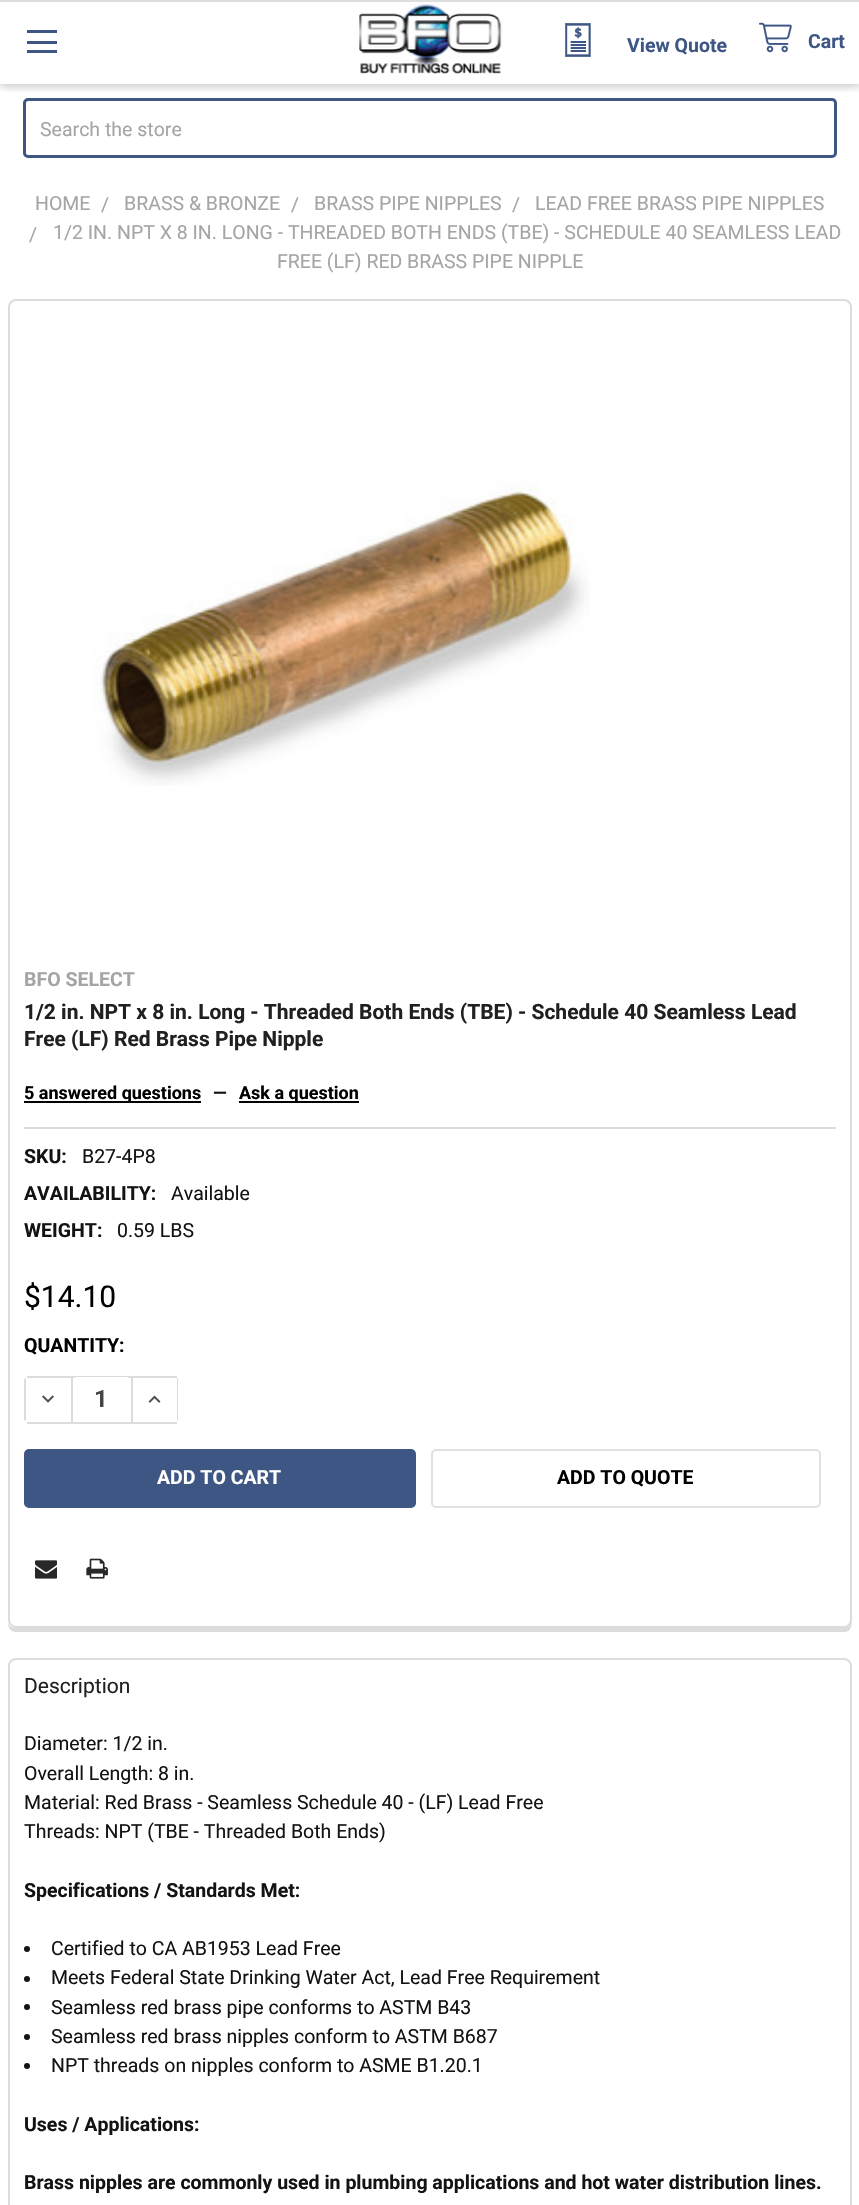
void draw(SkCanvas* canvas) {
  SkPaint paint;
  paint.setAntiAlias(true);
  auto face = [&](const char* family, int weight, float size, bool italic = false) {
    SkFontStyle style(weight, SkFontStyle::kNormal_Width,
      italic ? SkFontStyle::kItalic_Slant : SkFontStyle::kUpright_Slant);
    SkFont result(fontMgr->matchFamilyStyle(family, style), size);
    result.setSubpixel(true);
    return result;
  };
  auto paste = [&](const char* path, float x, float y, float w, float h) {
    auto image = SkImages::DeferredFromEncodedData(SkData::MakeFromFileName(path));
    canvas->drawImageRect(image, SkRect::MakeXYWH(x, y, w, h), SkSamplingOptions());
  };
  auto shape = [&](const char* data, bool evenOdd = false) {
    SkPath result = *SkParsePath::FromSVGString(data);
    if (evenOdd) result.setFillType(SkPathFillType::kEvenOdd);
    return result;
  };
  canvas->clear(0xffffffff);
  paint.setStroke(true);
  paint.setStrokeWidth(3);
  paint.setColor(0xff3e5684);
  canvas->drawRoundRect(SkRect::MakeXYWH(24.5f, 99.5f, 811, 57), 3.5f, 3.5f, paint);
  canvas->save();
  canvas->clipRect(SkRect::MakeXYWH(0, 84, 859, 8));
  paint.setStroke(false);
  paint.setColor(0x33000000);
  paint.setMaskFilter(SkMaskFilter::MakeBlur(kNormal_SkBlurStyle, 4));
  canvas->drawRect(SkRect::MakeXYWH(0, 3, 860, 84), paint);
  paint.setMaskFilter(nullptr);
  canvas->restore();
  {
    const struct { float x, y, w, h; SkColor color; } items[] = {
      {0, 0, 859, 2, 0xffdedede},
      {27, 41, 30, 3, 0xff3e5684},
      {27, 30, 30, 3, 0xff3e5684},
      {27, 50, 30, 3, 0xff3e5684},
    };
    for (auto [x, y, w, h, color] : items) {
      paint.setColor(color);
      canvas->drawRect(SkRect::MakeXYWH(x, y, w, h), paint);
    }
  }
  paste("img/1.png", 359, 4, 143, 70);
  paste("img/2.png", 565, 23, 26, 34);
  paste("img/3.png", 759, 22, 33, 31);
  paint.setColor(0xffdcdcdc);
  canvas->drawPath(shape("M8 1623C8 1628 11 1632 16 1632H844C851 1632 852 1626 852 1620C852 1624 849 1628 844 1628H15C12 1628 9 1626 8 1623Z"), paint);
  paint.setColor(0xffffffff);
  canvas->drawRoundRect(SkRect::MakeXYWH(9, 300, 842, 1327), 7, 7, paint);
  paint.setStroke(true);
  paint.setStrokeWidth(2);
  paint.setColor(0xffdcdcdc);
  canvas->drawRoundRect(SkRect::MakeXYWH(9, 300, 842, 1327), 7, 7, paint);
  paste("img/4.png", 92, 481, 498, 305);
  paint.setStroke(false);
  {
    const struct { float x, y, w, h; SkColor color; } items[] = {
      {24, 1101, 177, 2, 0xff000000},
      {239, 1101, 120, 2, 0xff000000},
      {24, 1127, 812, 2, 0xffdcdcdc},
      {27, 1376, 150, 2, 0xffdcdcdc},
      {27, 1422, 150, 2, 0xffdcdcdc},
    };
    for (auto [x, y, w, h, color] : items) {
      paint.setColor(color);
      canvas->drawRect(SkRect::MakeXYWH(x, y, w, h), paint);
    }
  }
  paint.setColor(0xffffffff);
  canvas->drawRoundRect(SkRect::MakeXYWH(72, 1377, 59, 45), 5, 5, paint);
  paint.setColor(0xffdcdcdc);
  canvas->drawRect(SkRect::MakeXYWH(71, 1377, 2, 45), paint);
  canvas->drawPath(shape("M24 1380V1420L26 1421V1378C25 1378 24 1379 24 1380Z"), paint);
  paste("img/5.png", 42, 1395, 12, 8);
  canvas->drawPath(shape("M177 1378C178 1378 178 1379 178 1380V1419C178 1420 178 1421 177 1421Z"), paint);
  canvas->drawRect(SkRect::MakeXYWH(131, 1377, 2, 45), paint);
  paste("img/6.png", 148, 1395, 13, 8);
  paint.setColor(0xff3e5684);
  canvas->drawRoundRect(SkRect::MakeXYWH(25, 1450, 390, 57), 4, 4, paint);
  paint.setStroke(true);
  canvas->drawRoundRect(SkRect::MakeXYWH(25, 1450, 390, 57), 4, 4, paint);
  paint.setColor(0xffe0e1e4);
  canvas->drawRoundRect(SkRect::MakeXYWH(432, 1450, 388, 57), 4, 4, paint);
  paste("img/7.png", 35, 1560, 22, 19);
  paste("img/8.png", 86, 1558, 22, 21);
  paint.setColor(0xffdcdcdc);
  canvas->drawRoundRect(SkRect::MakeXYWH(9, 1659, 842, 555), 7, 7, paint);
  paint.setStroke(false);
  paint.setColor(0xff131313);
  canvas->drawCircle(27, 1949, 3, paint);
  canvas->drawCircle(27, 1979, 3, paint);
  canvas->drawCircle(27, 2007, 3, paint);
  canvas->drawCircle(27, 2037, 3, paint);
  canvas->drawCircle(27, 2066, 3, paint);
  auto f0 = face("Roboto", 700, 19.5f);
  paint.setColor(0xff3e5684);
  canvas->drawString("View Quote", 627, 52, f0, paint);
  canvas->drawString("Cart", 808, 48, f0, paint);
  auto f1 = face("Roboto", 400, 19.5f);
  paint.setColor(0xffa5a5a5);
  {
    const struct { const char* s; float x, y; } items[] = {
      {"Search the store", 40, 136},
      {"HOME", 35, 210},
      {"/", 101, 211},
      {"BRASS & BRONZE", 124, 210},
      {"/", 291, 211},
      {"BRASS PIPE NIPPLES", 314, 210},
      {"/", 512, 211},
      {"LEAD FREE BRASS PIPE NIPPLES", 535, 210},
      {"/", 29, 241},
      {"1/2 IN. NPT X 8 IN. LONG - THREADED BOTH ENDS (TBE) - SCHEDULE 40 SEAMLESS LEAD", 53, 239},
      {"FREE (LF) RED BRASS PIPE NIPPLE", 277, 268},
    };
    for (auto [s, x, y] : items) {
      canvas->drawString(s, x, y, f1, paint);
    }
  }
  canvas->drawString("BFO SELECT", 24, 986, f0, paint);
  auto f2 = face("Roboto", 700, 21);
  paint.setColor(0xff202020);
  canvas->drawString("1/2 in. NPT x 8 in. Long - Threaded Both Ends (TBE) - Schedule 40 Seamless Lead", 24, 1019, f2, paint);
  canvas->drawString("Free (LF) Red Brass Pipe Nipple", 24, 1046, f2, paint);
  auto f3 = face("Roboto", 700, 18);
  paint.setColor(0xff000000);
  canvas->drawString("5 answered questions", 24, 1099, f3, paint);
  paint.setColor(0xff131313);
  canvas->drawString("—", 213, 1099, f3, paint);
  paint.setColor(0xff000000);
  canvas->drawString("Ask a question", 239, 1099, f3, paint);
  paint.setColor(0xff131313);
  canvas->drawString("SKU:", 24, 1163, f0, paint);
  canvas->drawString("B27-4P8", 82, 1163, f1, paint);
  canvas->drawString("AVAILABILITY:", 24, 1200, f0, paint);
  canvas->drawString("Available", 171, 1200, f1, paint);
  canvas->drawString("WEIGHT:", 24, 1237, f0, paint);
  canvas->drawString("0.59 LBS", 117, 1237, f1, paint);
  auto f4 = face("Roboto", 400, 30);
  paint.setColor(0xff000000);
  canvas->drawString("$14.10", 24, 1307, f4, paint);
  canvas->drawString("QUANTITY:", 24, 1352, f0, paint);
  auto f5 = face("Roboto", 700, 24);
  paint.setColor(0xff454545);
  canvas->drawString("1", 94, 1407, f5, paint);
  paint.setColor(0xffffffff);
  canvas->drawString("ADD TO CART", 157, 1484, f0, paint);
  paint.setColor(0xff000000);
  canvas->drawString("ADD TO QUOTE", 557, 1484, f0, paint);
  auto f6 = face("Roboto", 400, 21);
  paint.setColor(0xff202020);
  canvas->drawString("Description", 24, 1693, f6, paint);
  paint.setColor(0xff131313);
  {
    const struct { const char* s; float x, y; } items[] = {
      {"Diameter: 1/2 in.", 24, 1750},
      {"Overall Length: 8 in.", 24, 1780},
      {"Material: Red Brass - Seamless Schedule 40 - (LF) Lead Free", 24, 1809},
      {"Threads: NPT (TBE - Threaded Both Ends)", 24, 1838},
    };
    for (auto [s, x, y] : items) {
      canvas->drawString(s, x, y, f1, paint);
    }
  }
  canvas->drawString("Specifications / Standards Met:", 24, 1897, f0, paint);
  {
    const struct { const char* s; float x, y; } items[] = {
      {"Certified to CA AB1953 Lead Free", 51, 1955},
      {"Meets Federal State Drinking Water Act, Lead Free Requirement", 51, 1984},
      {"Seamless red brass pipe conforms to ASTM B43", 51, 2014},
      {"Seamless red brass nipples conform to ASTM B687", 51, 2043},
      {"NPT threads on nipples conform to ASME B1.20.1", 51, 2072},
    };
    for (auto [s, x, y] : items) {
      canvas->drawString(s, x, y, f1, paint);
    }
  }
  canvas->drawString("Uses / Applications:", 24, 2131, f0, paint);
  canvas->drawString("Brass nipples are commonly used in plumbing applications and hot water distribution lines.", 24, 2189, f0, paint);
}
